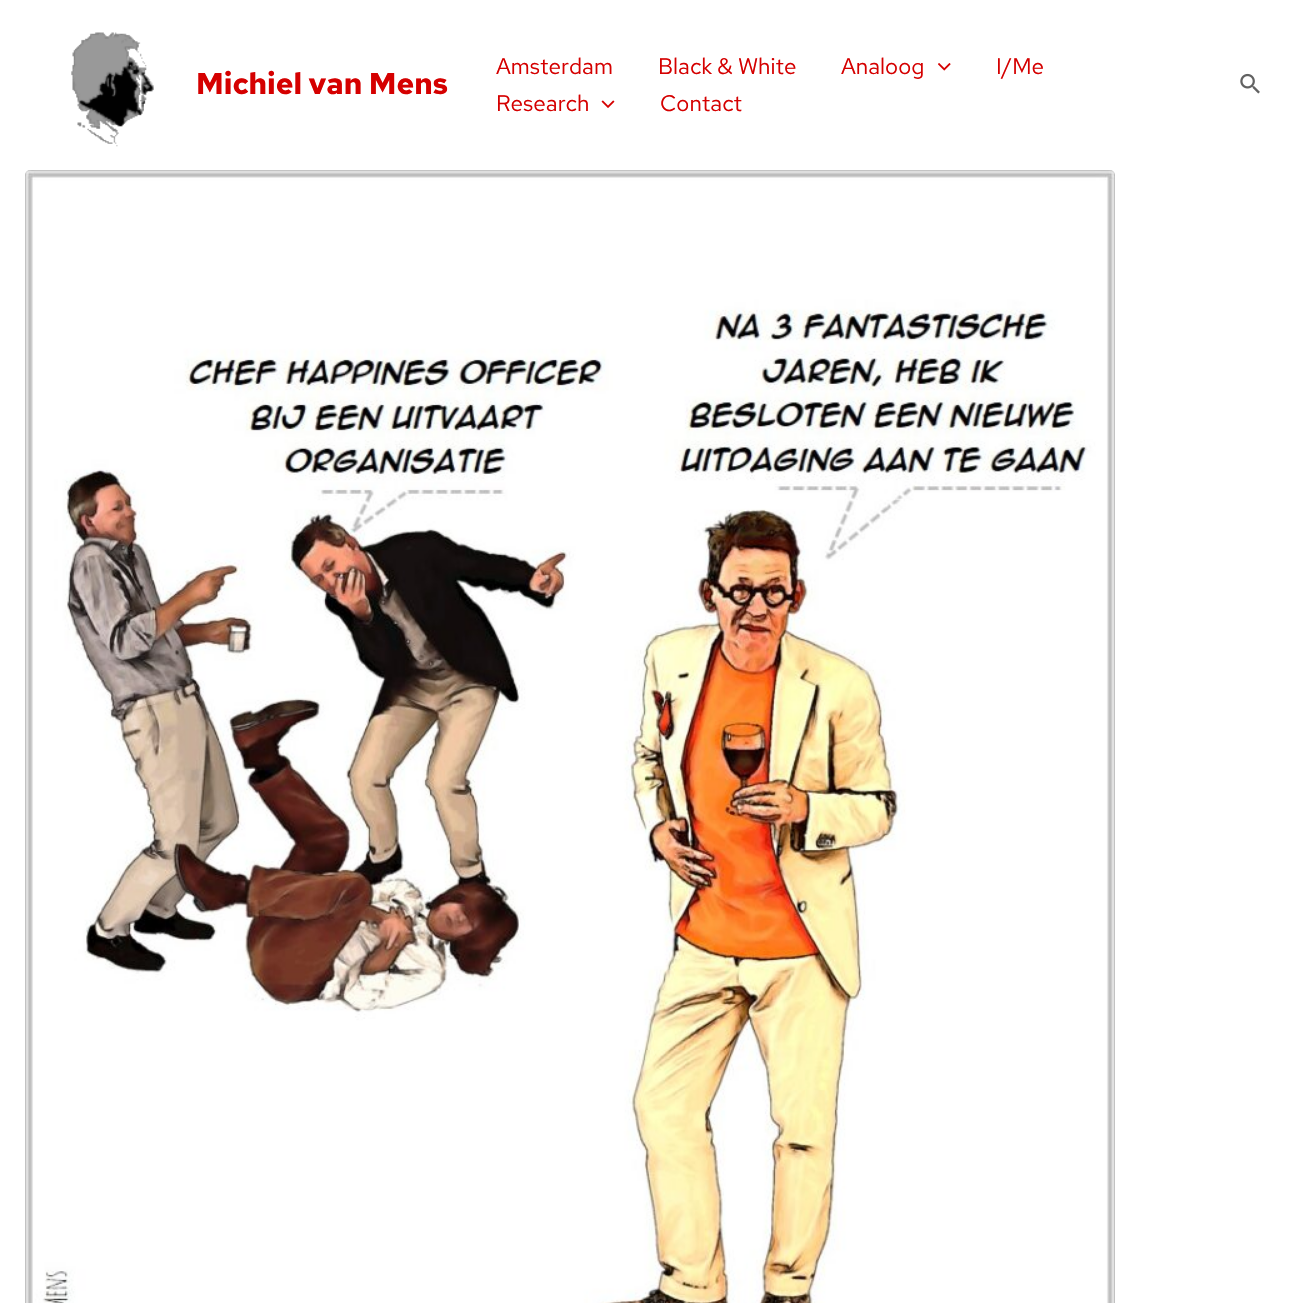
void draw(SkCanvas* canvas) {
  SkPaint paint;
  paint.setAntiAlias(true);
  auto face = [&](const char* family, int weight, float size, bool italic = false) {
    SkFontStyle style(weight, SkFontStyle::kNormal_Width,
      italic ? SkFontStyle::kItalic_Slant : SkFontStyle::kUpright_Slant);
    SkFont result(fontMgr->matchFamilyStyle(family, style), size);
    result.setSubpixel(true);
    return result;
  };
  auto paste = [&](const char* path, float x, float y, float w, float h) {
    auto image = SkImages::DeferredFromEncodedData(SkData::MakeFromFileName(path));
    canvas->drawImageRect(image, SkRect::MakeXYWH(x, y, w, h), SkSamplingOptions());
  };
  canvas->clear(0xffffffff);
  paste("img/1.png", 71, 32, 83, 115);
  paste("img/2.png", 938, 63, 13, 8);
  paste("img/3.png", 601, 100, 14, 8);
  paste("img/4.png", 1240, 73, 20, 21);
  paste("img/5.png", 25, 170, 1090, 1133);
  auto f0 = face("Red Hat Text", 700, 30);
  paint.setColor(0xffd50000);
  canvas->drawString("Michiel van Mens", 196, 94, f0, paint);
  auto f1 = face("Red Hat Text", 400, 22.5f);
  {
    const struct { const char* s; float x, y; } items[] = {
      {"Amsterdam", 496, 74},
      {"Black & White", 658, 74},
      {"Analoog", 841, 74},
      {"I/Me", 996, 74},
      {"Research", 496, 111},
      {"Contact", 660, 111},
    };
    for (auto [s, x, y] : items) {
      canvas->drawString(s, x, y, f1, paint);
    }
  }
}
